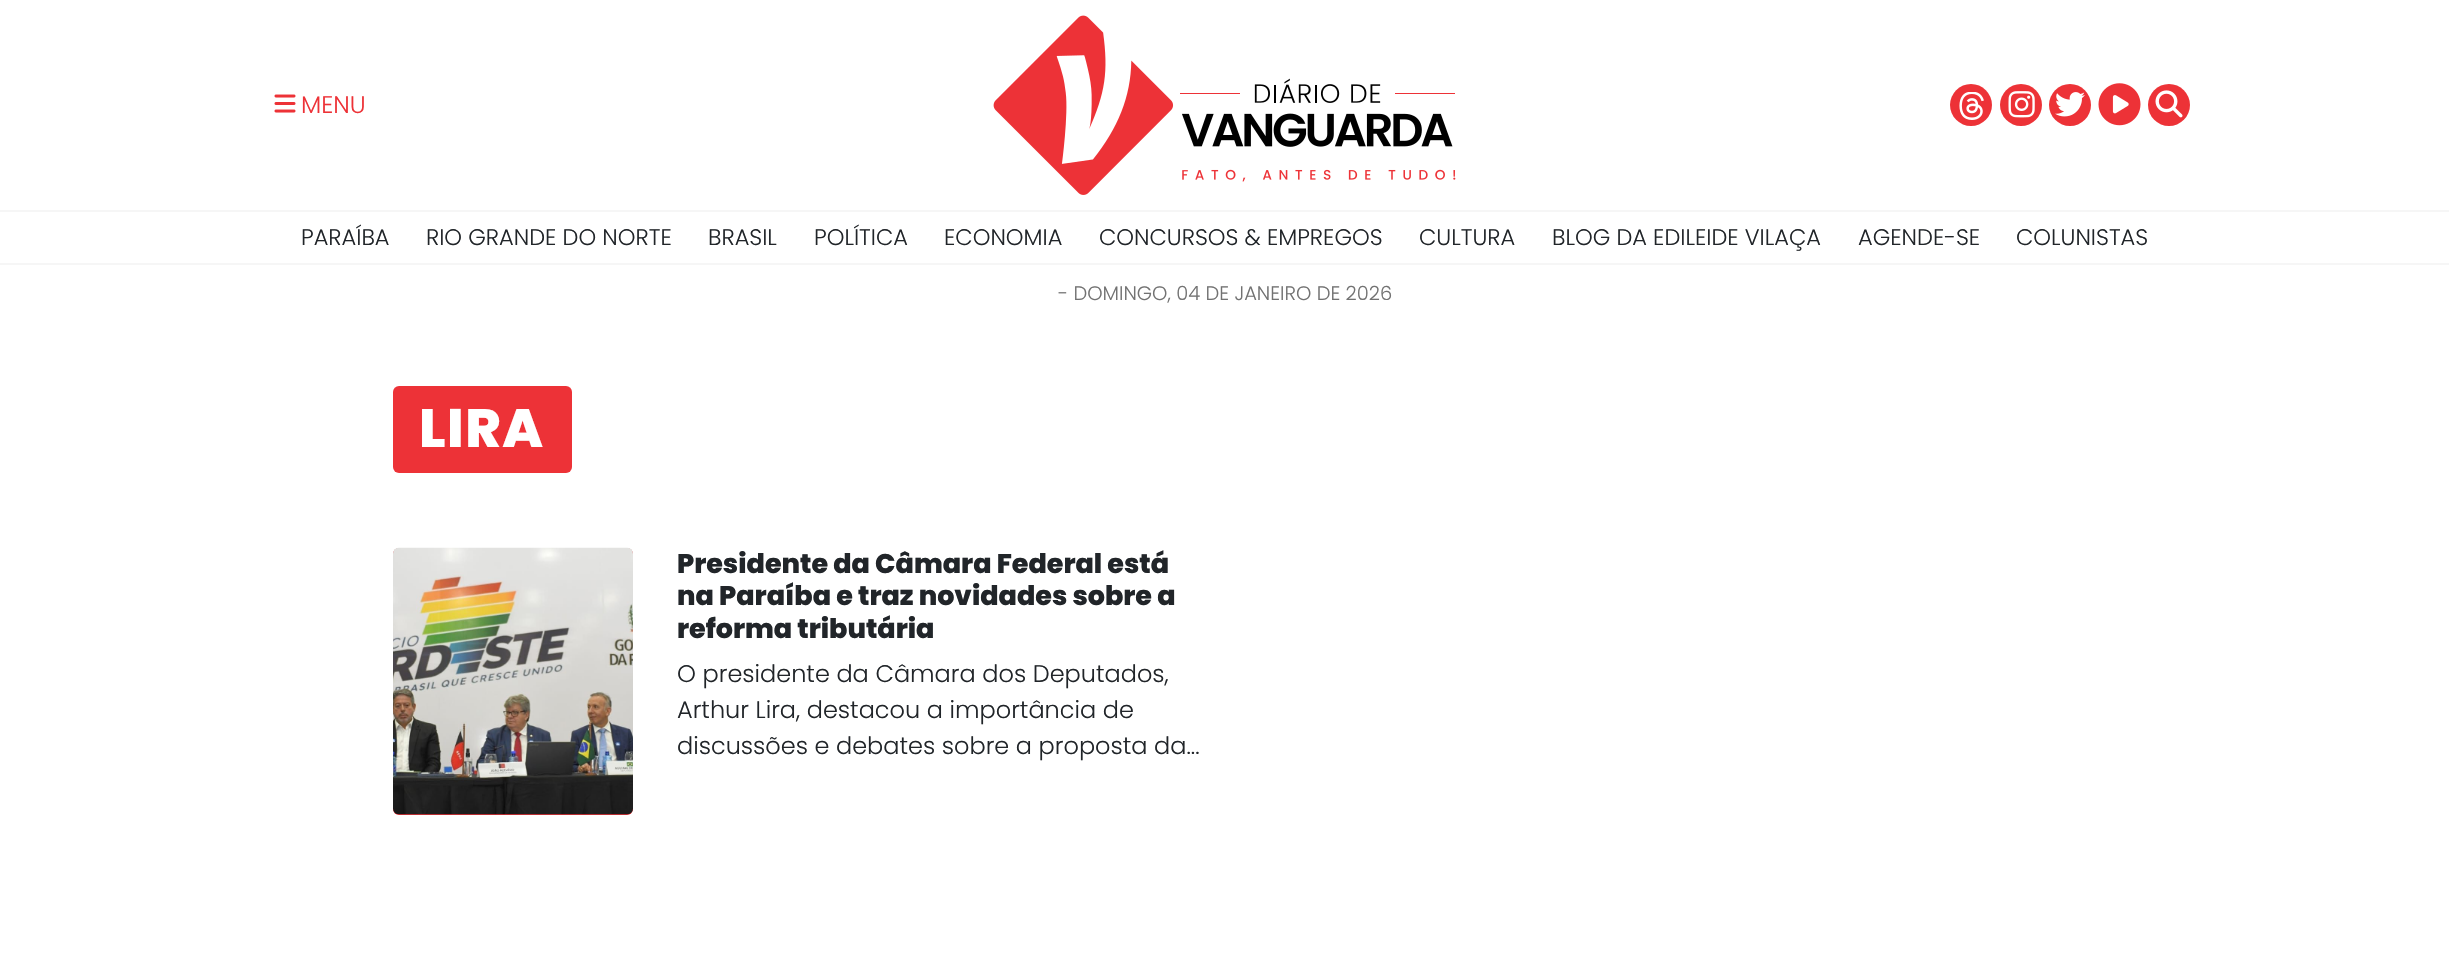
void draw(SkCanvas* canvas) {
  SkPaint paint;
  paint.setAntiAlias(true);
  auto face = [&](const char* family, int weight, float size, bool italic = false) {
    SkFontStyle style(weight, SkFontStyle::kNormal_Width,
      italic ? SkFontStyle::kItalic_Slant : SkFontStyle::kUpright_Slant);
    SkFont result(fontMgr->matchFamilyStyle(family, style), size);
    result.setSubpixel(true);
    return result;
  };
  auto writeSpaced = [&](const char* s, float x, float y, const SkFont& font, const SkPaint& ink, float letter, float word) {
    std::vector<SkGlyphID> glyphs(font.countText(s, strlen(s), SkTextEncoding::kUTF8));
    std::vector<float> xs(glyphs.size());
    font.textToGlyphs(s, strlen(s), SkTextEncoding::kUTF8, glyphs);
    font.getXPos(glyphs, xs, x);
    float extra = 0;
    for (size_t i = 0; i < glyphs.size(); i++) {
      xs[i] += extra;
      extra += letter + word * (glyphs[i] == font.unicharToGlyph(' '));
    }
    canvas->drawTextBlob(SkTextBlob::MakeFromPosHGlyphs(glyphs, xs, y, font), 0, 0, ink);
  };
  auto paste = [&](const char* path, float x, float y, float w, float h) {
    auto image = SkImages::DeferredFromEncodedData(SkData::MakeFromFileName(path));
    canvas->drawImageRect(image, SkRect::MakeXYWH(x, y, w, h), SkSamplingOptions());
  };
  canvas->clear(0xffffffff);
  paint.setColor(0xfff6f6f6);
  canvas->drawRect(SkRect::MakeXYWH(0, 263, 2449, 2), paint);
  paste("img/1.png", 274, 94, 22, 19);
  paste("img/2.png", 993, 15, 463, 180);
  paint.setColor(0xffed3237);
  canvas->drawCircle(1971, 105, 21, paint);
  paste("img/3.png", 1959, 92, 25, 28);
  canvas->drawCircle(2021, 105, 21, paint);
  paste("img/4.png", 2008, 91, 27, 27);
  canvas->drawCircle(2070, 105, 21, paint);
  paste("img/5.png", 2055, 92, 30, 25);
  paste("img/6.png", 2098, 83, 43, 43);
  canvas->drawCircle(2169, 105, 21, paint);
  paste("img/7.png", 2155, 90, 28, 28);
  paint.setColor(0xfff6f6f6);
  canvas->drawRect(SkRect::MakeXYWH(0, 210, 2449, 2), paint);
  paint.setColor(0xffed3237);
  canvas->drawRoundRect(SkRect::MakeXYWH(393, 386, 179, 87), 6, 6, paint);
  canvas->drawRoundRect(SkRect::MakeXYWH(393, 548, 240, 267), 6, 6, paint);
  paste("img/8.png", 393, 547, 240, 268);
  auto f0 = face("Poppins", 300, 24);
  canvas->drawString("MENU", 301, 113, f0, paint);
  auto f1 = face("Poppins", 300, 22.5f);
  paint.setColor(0xff212529);
  {
    const struct { const char* s; float x, y; } items[] = {
      {"PARAÍBA", 301, 245},
      {"RIO GRANDE DO NORTE", 426, 245},
      {"BRASIL", 708, 245},
      {"POLÍTICA", 814, 245},
      {"ECONOMIA", 944, 245},
      {"CONCURSOS & EMPREGOS", 1099, 245},
      {"CULTURA", 1419, 245},
      {"BLOG DA EDILEIDE VILAÇA", 1552, 245},
      {"AGENDE-SE", 1858, 245},
      {"COLUNISTAS", 2016, 245},
    };
    for (auto [s, x, y] : items) {
      canvas->drawString(s, x, y, f1, paint);
    }
  }
  auto f2 = face("Poppins", 300, 19.5f);
  paint.setColor(0xff727272);
  canvas->drawString("- DOMINGO, 04 DE JANEIRO DE 2026", 1058, 300, f2, paint);
  auto f3 = face("Poppins", 800, 54);
  paint.setColor(0xffffffff);
  writeSpaced("LIRA", 419, 447, f3, paint, 1.5f, 0);
  auto f4 = face("Poppins", 800, 27);
  paint.setColor(0xff212529);
  {
    const struct { const char* s; float x, y; } items[] = {
      {"Presidente da Câmara Federal está", 677, 573},
      {"na Paraíba e traz novidades sobre a", 677, 605},
      {"reforma tributária", 677, 638},
    };
    for (auto [s, x, y] : items) {
      canvas->drawString(s, x, y, f4, paint);
    }
  }
  {
    const struct { const char* s; float x, y; } items[] = {
      {"O presidente da Câmara dos Deputados,", 677, 682},
      {"Arthur Lira, destacou a importância de", 677, 718},
      {"discussões e debates sobre a proposta da...", 677, 754},
    };
    for (auto [s, x, y] : items) {
      canvas->drawString(s, x, y, f0, paint);
    }
  }
}
